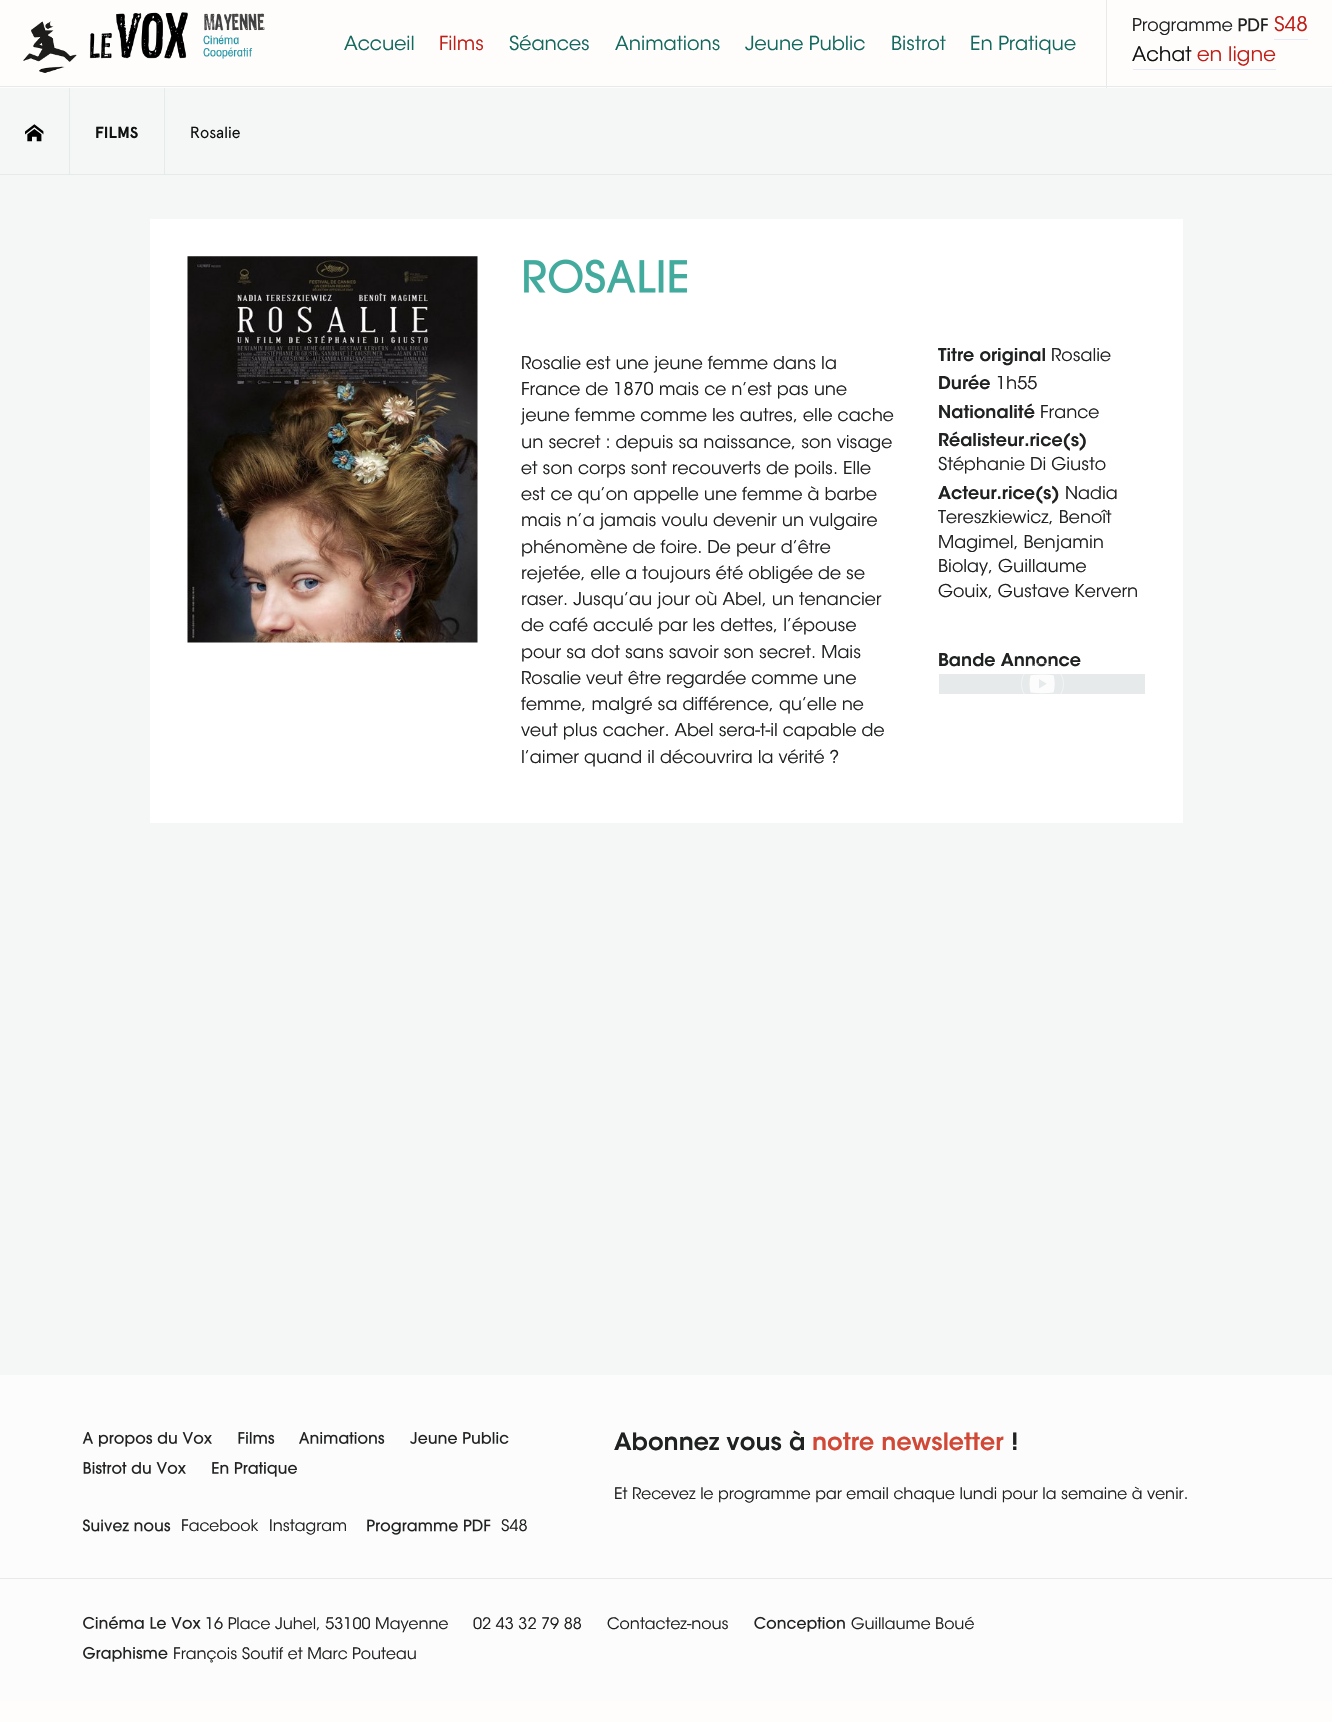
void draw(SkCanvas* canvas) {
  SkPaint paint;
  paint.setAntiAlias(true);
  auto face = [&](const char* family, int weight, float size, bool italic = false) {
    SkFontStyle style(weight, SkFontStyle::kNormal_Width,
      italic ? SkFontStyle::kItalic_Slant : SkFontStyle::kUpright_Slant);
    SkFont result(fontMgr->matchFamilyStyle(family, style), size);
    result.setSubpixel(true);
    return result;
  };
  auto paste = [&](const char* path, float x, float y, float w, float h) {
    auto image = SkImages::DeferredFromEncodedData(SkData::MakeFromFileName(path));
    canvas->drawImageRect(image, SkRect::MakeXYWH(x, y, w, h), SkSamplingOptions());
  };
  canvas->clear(0xfffffcfc);
  paint.setColor(0xffe6eaea);
  canvas->drawRect(SkRect::MakeXYWH(0, 86, 1332, 1), paint);
  paste("img/1.png", 23, 12, 242, 61);
  canvas->drawRect(SkRect::MakeXYWH(1106, 0, 1, 88), paint);
  paste("img/2.png", 1238, 18, 30, 14);
  {
    const struct { float x, y, w, h; SkColor color; } items[] = {
      {1274, 39, 34, 1, 0xffe5eafa},
      {1133, 69, 143, 1, 0xffe5eafa},
      {0, 88, 1332, 1287, 0xfff4f7f6},
      {0, 174, 1332, 1, 0xffe6eaea},
      {69, 88, 1, 86, 0xffe6eaea},
    };
    for (auto [x, y, w, h, color] : items) {
      paint.setColor(color);
      canvas->drawRect(SkRect::MakeXYWH(x, y, w, h), paint);
    }
  }
  paste("img/3.png", 25, 124, 19, 18);
  canvas->drawRect(SkRect::MakeXYWH(164, 88, 1, 86), paint);
  paint.setColor(0xffffffff);
  canvas->drawRect(SkRect::MakeXYWH(150, 219, 1033, 604), paint);
  paste("img/4.png", 187, 256, 291, 387);
  paste("img/5.png", 524, 259, 163, 35);
  paint.setColor(0xffe6eaea);
  canvas->drawRect(SkRect::MakeXYWH(939, 674, 206, 20), paint);
  paint.setColor(0xfffcfcfc);
  canvas->drawRect(SkRect::MakeXYWH(0, 1375, 1332, 326), paint);
  paste("img/7.png", 82, 1432, 130, 15);
  paste("img/8.png", 238, 1432, 37, 12);
  paste("img/9.png", 299, 1432, 86, 12);
  paste("img/10.png", 410, 1432, 99, 12);
  paste("img/11.png", 83, 1462, 103, 12);
  paste("img/12.png", 212, 1462, 85, 15);
  paste("img/13.png", 82, 1519, 89, 13);
  paste("img/14.png", 367, 1519, 124, 16);
  paint.setColor(0xffe6eaea);
  canvas->drawRect(SkRect::MakeXYWH(0, 1578, 1332, 1), paint);
  paste("img/15.png", 83, 1616, 118, 13);
  paste("img/16.png", 754, 1616, 91, 16);
  paste("img/17.png", 83, 1646, 85, 16);
  auto f0 = face("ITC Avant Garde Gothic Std", 300, 19.25f);
  paint.setColor(0xff13695e);
  canvas->drawString("Accueil", 344, 50, f0, paint);
  paint.setColor(0xffc01f17);
  canvas->drawString("Films", 439, 50, f0, paint);
  paint.setColor(0xff13695e);
  {
    const struct { const char* s; float x, y; } items[] = {
      {"Séances", 509, 50},
      {"Animations", 615, 50},
      {"Jeune Public", 745, 50},
      {"Bistrot", 891, 50},
      {"En Pratique", 970, 50},
    };
    for (auto [s, x, y] : items) {
      canvas->drawString(s, x, y, f0, paint);
    }
  }
  auto f1 = face("ITC Avant Garde Gothic Std", 300, 17.5f);
  paint.setColor(0xff202121);
  canvas->drawString("Programme", 1132, 31, f1, paint);
  auto f2 = face("ITC Avant Garde Gothic Std", 300, 20);
  paint.setColor(0xffc01f17);
  canvas->drawString("S48", 1274, 31, f2, paint);
  paint.setColor(0xff101111);
  canvas->drawString("Achat", 1132, 61, f2, paint);
  paint.setColor(0xffc01f17);
  canvas->drawString("en ligne", 1197, 61, f2, paint);
  auto f3 = face("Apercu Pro", 700, 16);
  paint.setColor(0xff101111);
  canvas->drawString("FILMS", 95, 138, f3, paint);
  auto f4 = face("Apercu Pro", 400, 16);
  canvas->drawString("Rosalie", 190, 138, f4, paint);
  paint.setColor(0xff202121);
  {
    const struct { const char* s; float x, y; } items[] = {
      {"Rosalie est une jeune femme dans la", 521, 369},
      {"France de 1870 mais ce n’est pas une", 521, 395},
      {"jeune femme comme les autres, elle cache", 521, 421},
      {"un secret : depuis sa naissance, son visage", 521, 448},
      {"et son corps sont recouverts de poils. Elle", 521, 474},
      {"est ce qu’on appelle une femme à barbe", 521, 500},
      {"mais n’a jamais voulu devenir un vulgaire", 521, 526},
      {"phénomène de foire. De peur d’être", 521, 553},
      {"rejetée, elle a toujours été obligée de se", 521, 579},
      {"raser. Jusqu’au jour où Abel, un tenancier", 521, 605},
      {"de café acculé par les dettes, l’épouse", 521, 631},
      {"pour sa dot sans savoir son secret. Mais", 521, 658},
      {"Rosalie veut être regardée comme une", 521, 684},
      {"femme, malgré sa différence, qu’elle ne", 521, 710},
      {"veut plus cacher. Abel sera-t-il capable de", 521, 736},
      {"l’aimer quand il découvrira la vérité ?", 521, 763},
    };
    for (auto [s, x, y] : items) {
      canvas->drawString(s, x, y, f1, paint);
    }
  }
  auto f5 = face("ITC Avant Garde Gothic Std", 600, 17.5f);
  canvas->drawString("Titre original", 938, 361, f5, paint);
  canvas->drawString("Rosalie", 1051, 361, f1, paint);
  canvas->drawString("Durée", 938, 389, f5, paint);
  canvas->drawString("1h55", 996, 389, f1, paint);
  canvas->drawString("Nationalité", 938, 418, f5, paint);
  canvas->drawString("France", 1040, 418, f1, paint);
  canvas->drawString("Réalisteur.rice(s)", 938, 446, f5, paint);
  canvas->drawString("Stéphanie Di Giusto", 938, 470, f1, paint);
  canvas->drawString("Acteur.rice(s)", 938, 499, f5, paint);
  {
    const struct { const char* s; float x, y; } items[] = {
      {"Nadia", 1065, 499},
      {"Tereszkiewicz, Benoît", 938, 523},
      {"Magimel, Benjamin", 938, 548},
      {"Biolay, Guillaume", 938, 572},
      {"Gouix, Gustave Kervern", 938, 597},
    };
    for (auto [s, x, y] : items) {
      canvas->drawString(s, x, y, f1, paint);
    }
  }
  canvas->drawString("Bande Annonce", 938, 666, f5, paint);
  paint.setStroke(true);
  paint.setStrokeWidth(1);
  paint.setColor(0x80ffffff);
  canvas->drawRoundRect(SkRect::MakeXYWH(1021.5f, 663.5f, 42, 41), 20.5f, 20.5f, paint);
  paste("img/6.png", 1029, 674, 26, 20);
  auto f6 = face("ITC Avant Garde Gothic Std", 600, 23.75f);
  paint.setStroke(false);
  paint.setColor(0xff202121);
  canvas->drawString("Abonnez vous à", 614, 1450, f6, paint);
  paint.setColor(0xffd14836);
  canvas->drawString("notre newsletter", 812, 1450, f6, paint);
  paint.setColor(0xff202121);
  canvas->drawString("!", 1011, 1450, f6, paint);
  auto f7 = face("ITC Avant Garde Gothic Std", 300, 15.75f);
  {
    const struct { const char* s; float x, y; } items[] = {
      {"Et Recevez le programme par email chaque lundi pour la semaine à venir.", 614, 1499},
      {"Facebook", 181, 1531},
      {"Instagram", 269, 1531},
      {"S48", 501, 1531},
      {"16 Place Juhel, 53100 Mayenne", 205, 1629},
      {"02 43 32 79 88", 473, 1629},
      {"Contactez-nous", 607, 1629},
      {"Guillaume Boué", 851, 1629},
      {"François Soutif et Marc Pouteau", 173, 1659},
    };
    for (auto [s, x, y] : items) {
      canvas->drawString(s, x, y, f7, paint);
    }
  }
}
